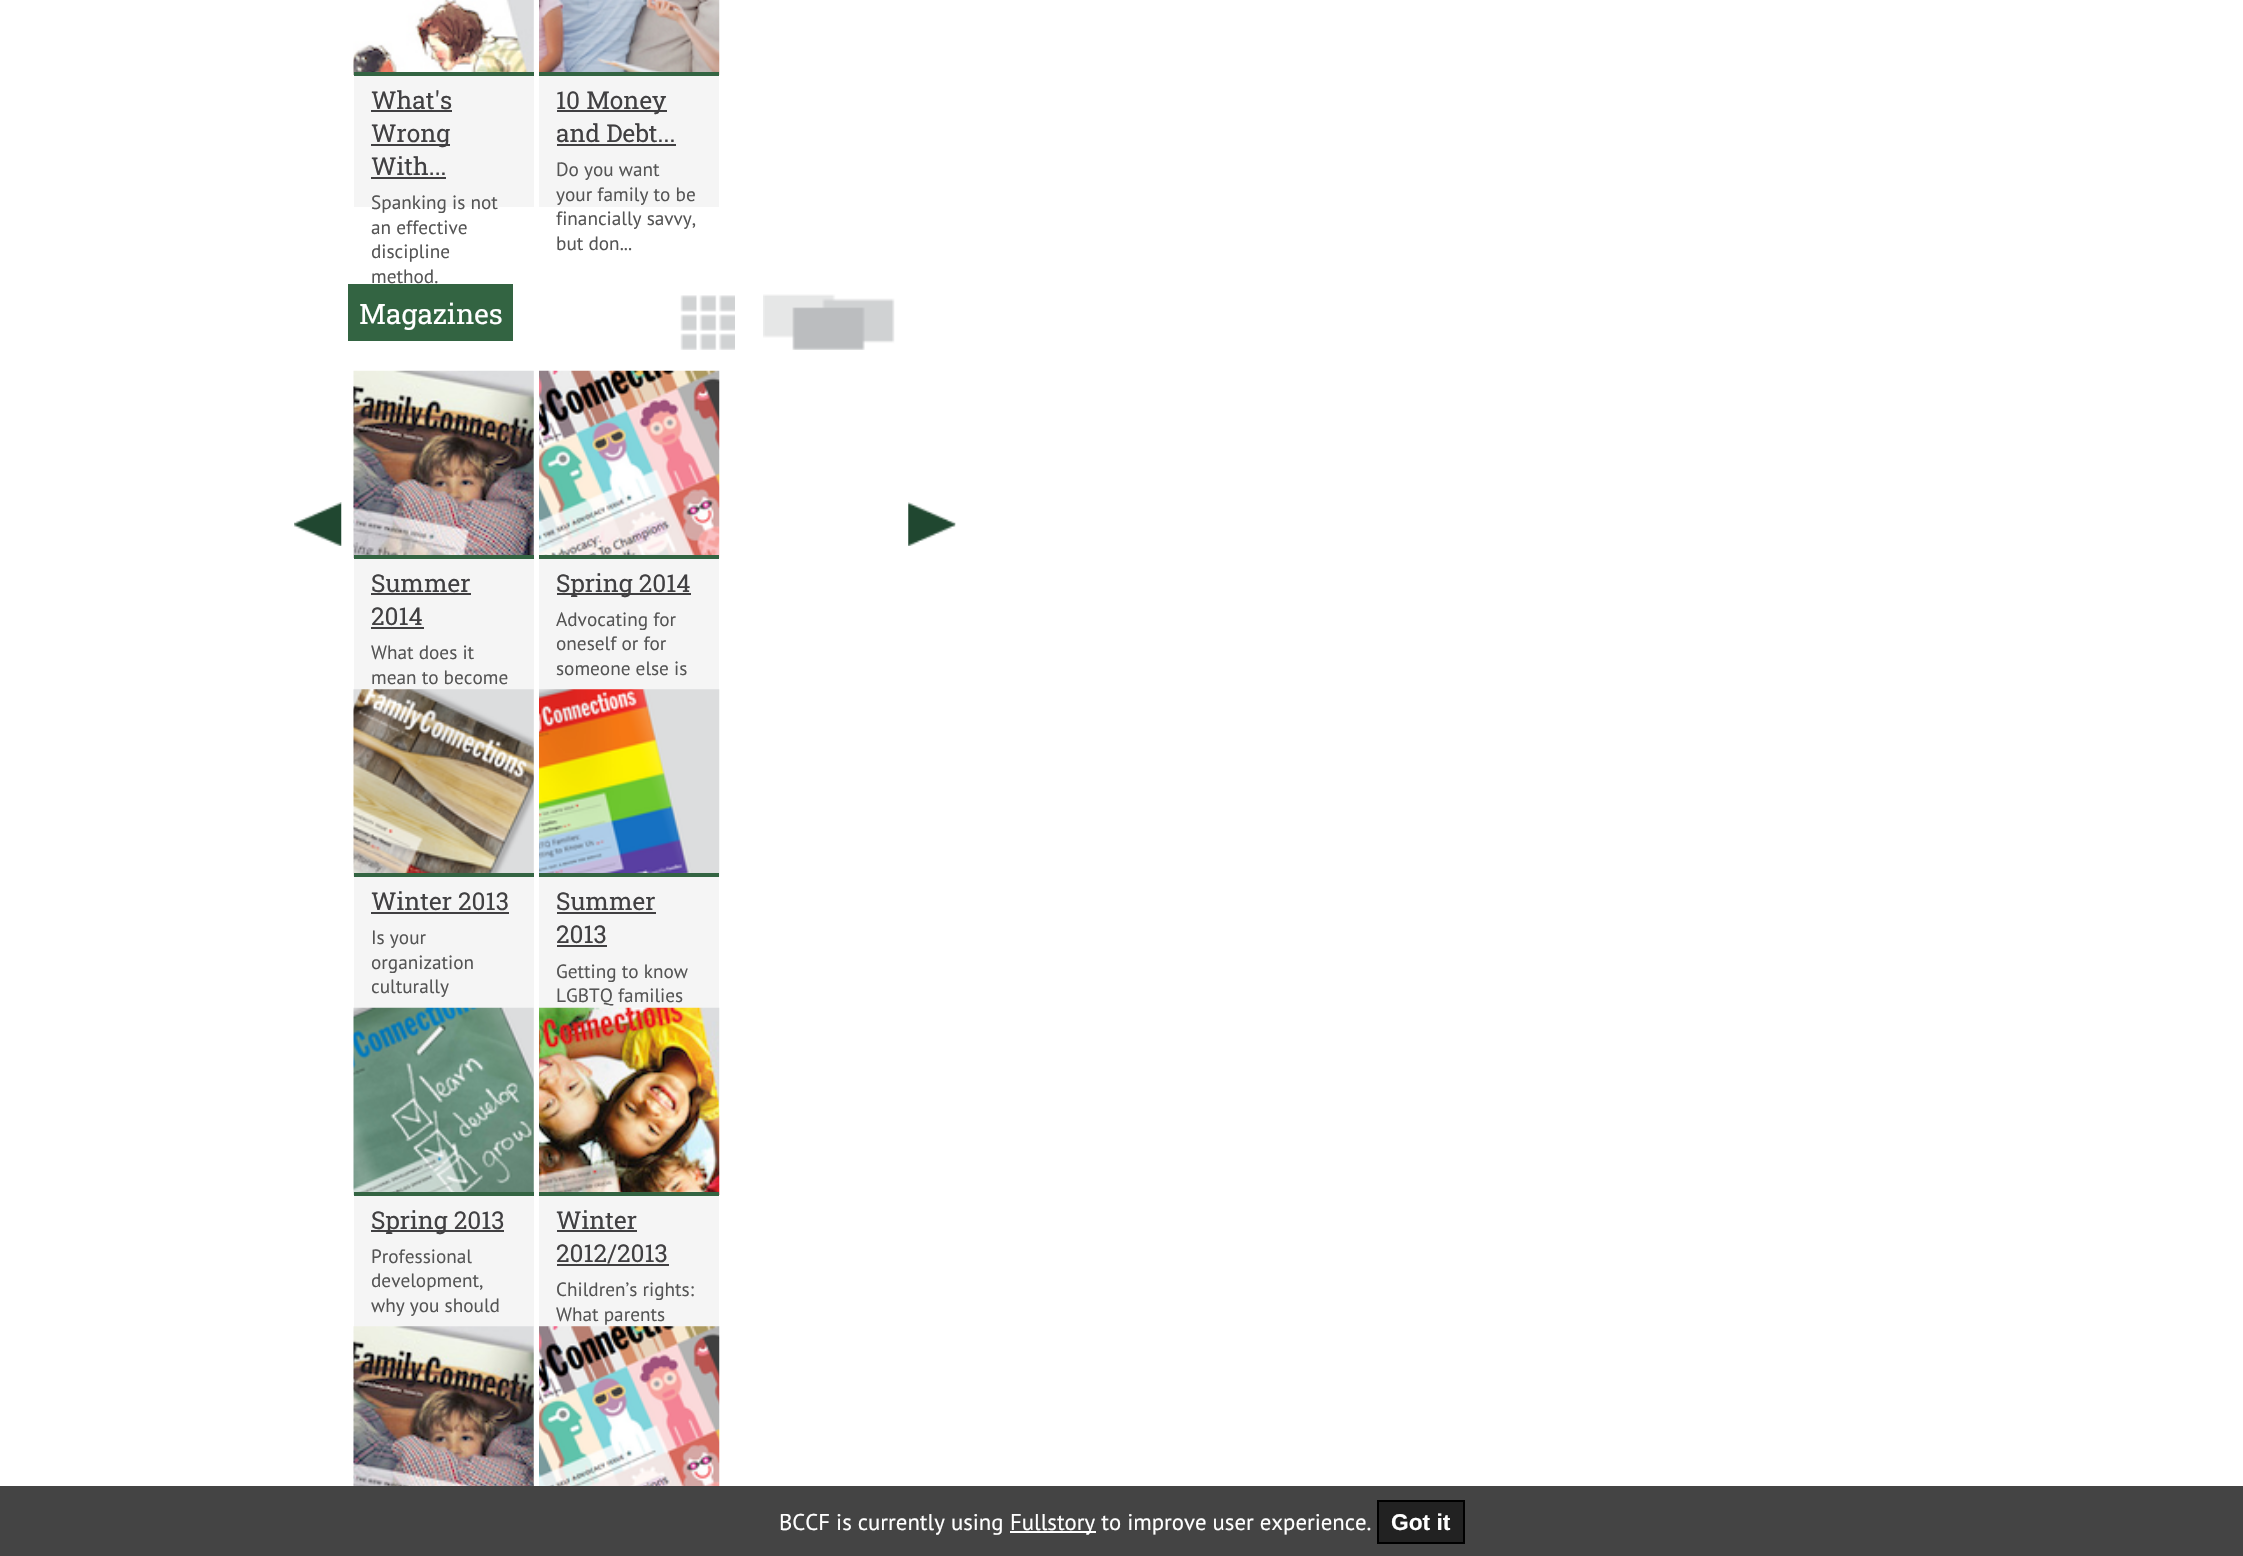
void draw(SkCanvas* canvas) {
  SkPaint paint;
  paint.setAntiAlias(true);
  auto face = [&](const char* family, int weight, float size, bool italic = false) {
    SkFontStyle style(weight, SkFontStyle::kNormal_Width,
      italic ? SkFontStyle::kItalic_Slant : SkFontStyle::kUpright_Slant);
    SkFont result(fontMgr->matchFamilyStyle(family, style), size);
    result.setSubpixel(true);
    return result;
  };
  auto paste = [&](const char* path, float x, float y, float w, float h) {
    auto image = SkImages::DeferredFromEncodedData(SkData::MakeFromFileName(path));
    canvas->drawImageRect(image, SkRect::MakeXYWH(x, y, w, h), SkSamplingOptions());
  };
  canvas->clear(0xffffffff);
  paint.setColor(0xfff5f5f5);
  canvas->drawRect(SkRect::MakeXYWH(354, 0, 180, 207), paint);
  paste("img/1.png", 353, 0, 181, 75);
  {
    const struct { float x, y, w, h; SkColor color; } items[] = {
      {354, 72, 180, 4, 0xff336442},
      {371, 110, 81, 2, 0xff414042},
      {371, 144, 79, 2, 0xff414042},
      {371, 177, 75, 2, 0xff414042},
      {539, 76, 180, 131, 0xfff5f5f5},
    };
    for (auto [x, y, w, h, color] : items) {
      paint.setColor(color);
      canvas->drawRect(SkRect::MakeXYWH(x, y, w, h), paint);
    }
  }
  paste("img/2.png", 539, 0, 181, 75);
  {
    const struct { float x, y, w, h; SkColor color; } items[] = {
      {539, 72, 180, 4, 0xff336442},
      {557, 110, 110, 2, 0xff414042},
      {557, 144, 119, 2, 0xff414042},
      {348, 284, 165, 57, 0xff336442},
    };
    for (auto [x, y, w, h, color] : items) {
      paint.setColor(color);
      canvas->drawRect(SkRect::MakeXYWH(x, y, w, h), paint);
    }
  }
  paste("img/3.png", 680, 295, 55, 55);
  paste("img/4.png", 763, 294, 132, 56);
  paste("img/5.png", 294, 502, 48, 44);
  paste("img/6.png", 908, 502, 48, 44);
  paint.setColor(0xfff5f5f5);
  canvas->drawRect(SkRect::MakeXYWH(354, 371, 180, 956), paint);
  paste("img/7.png", 353, 370, 181, 188);
  {
    const struct { float x, y, w, h; SkColor color; } items[] = {
      {354, 555, 180, 4, 0xff336442},
      {371, 593, 100, 2, 0xff414042},
      {371, 627, 53, 2, 0xff414042},
      {539, 559, 180, 131, 0xfff5f5f5},
    };
    for (auto [x, y, w, h, color] : items) {
      paint.setColor(color);
      canvas->drawRect(SkRect::MakeXYWH(x, y, w, h), paint);
    }
  }
  paste("img/8.png", 539, 370, 181, 188);
  paint.setColor(0xff336442);
  canvas->drawRect(SkRect::MakeXYWH(539, 555, 180, 4), paint);
  paint.setColor(0xff414042);
  canvas->drawRect(SkRect::MakeXYWH(557, 593, 134, 2), paint);
  paste("img/9.png", 353, 689, 181, 188);
  {
    const struct { float x, y, w, h; SkColor color; } items[] = {
      {354, 873, 180, 4, 0xff336442},
      {371, 912, 138, 2, 0xff414042},
      {539, 877, 180, 131, 0xfff5f5f5},
    };
    for (auto [x, y, w, h, color] : items) {
      paint.setColor(color);
      canvas->drawRect(SkRect::MakeXYWH(x, y, w, h), paint);
    }
  }
  paste("img/10.png", 539, 689, 181, 188);
  {
    const struct { float x, y, w, h; SkColor color; } items[] = {
      {539, 873, 180, 4, 0xff336442},
      {557, 912, 99, 2, 0xff414042},
      {557, 945, 50, 2, 0xff414042},
    };
    for (auto [x, y, w, h, color] : items) {
      paint.setColor(color);
      canvas->drawRect(SkRect::MakeXYWH(x, y, w, h), paint);
    }
  }
  paste("img/11.png", 353, 1007, 181, 188);
  {
    const struct { float x, y, w, h; SkColor color; } items[] = {
      {354, 1192, 180, 4, 0xff336442},
      {371, 1230, 133, 2, 0xff414042},
      {539, 1196, 180, 131, 0xfff5f5f5},
    };
    for (auto [x, y, w, h, color] : items) {
      paint.setColor(color);
      canvas->drawRect(SkRect::MakeXYWH(x, y, w, h), paint);
    }
  }
  paste("img/12.png", 539, 1007, 181, 188);
  {
    const struct { float x, y, w, h; SkColor color; } items[] = {
      {539, 1192, 180, 4, 0xff336442},
      {557, 1230, 80, 2, 0xff414042},
      {557, 1264, 112, 2, 0xff414042},
    };
    for (auto [x, y, w, h, color] : items) {
      paint.setColor(color);
      canvas->drawRect(SkRect::MakeXYWH(x, y, w, h), paint);
    }
  }
  paste("img/13.png", 353, 1326, 181, 160);
  paste("img/14.png", 539, 1326, 181, 160);
  paint.setColor(0xff444444);
  canvas->drawRect(SkRect::MakeXYWH(0, 1486, 2243, 70), paint);
  paint.setColor(0xffffffff);
  canvas->drawRect(SkRect::MakeXYWH(1010, 1531, 86, 2), paint);
  paint.setColor(0xff222222);
  canvas->drawRect(SkRect::MakeXYWH(1378, 1501, 86, 42), paint);
  paint.setStroke(true);
  paint.setStrokeWidth(2);
  paint.setColor(0xff000000);
  canvas->drawRect(SkRect::MakeXYWH(1378, 1501, 86, 42), paint);
  auto f0 = face("Roboto Slab", 400, 24.5f);
  paint.setStroke(false);
  paint.setColor(0xff414042);
  {
    const struct { const char* s; float x, y; } items[] = {
      {"What's", 371, 109},
      {"Wrong", 371, 142},
      {"With...", 371, 175},
    };
    for (auto [s, x, y] : items) {
      canvas->drawString(s, x, y, f0, paint);
    }
  }
  auto f1 = face("PT Sans", 400, 19.25f);
  paint.setColor(0xff555555);
  {
    const struct { const char* s; float x, y; } items[] = {
      {"Spanking is not", 371, 209},
      {"an effective", 371, 234},
      {"discipline", 371, 258},
      {"method.", 371, 283},
    };
    for (auto [s, x, y] : items) {
      canvas->drawString(s, x, y, f1, paint);
    }
  }
  paint.setColor(0xff414042);
  canvas->drawString("10 Money", 556, 109, f0, paint);
  canvas->drawString("and Debt...", 556, 142, f0, paint);
  paint.setColor(0xff555555);
  {
    const struct { const char* s; float x, y; } items[] = {
      {"Do you want", 556, 176},
      {"your family to be", 556, 201},
      {"financially savvy,", 556, 225},
      {"but don...", 556, 250},
    };
    for (auto [s, x, y] : items) {
      canvas->drawString(s, x, y, f1, paint);
    }
  }
  auto f2 = face("Roboto Slab", 400, 28);
  paint.setColor(0xffffffff);
  canvas->drawString("Magazines", 359, 324, f2, paint);
  paint.setColor(0xff414042);
  canvas->drawString("Summer", 371, 592, f0, paint);
  canvas->drawString("2014", 371, 625, f0, paint);
  paint.setColor(0xff555555);
  canvas->drawString("What does it", 371, 659, f1, paint);
  canvas->drawString("mean to become", 371, 684, f1, paint);
  paint.setColor(0xff414042);
  canvas->drawString("Spring 2014", 556, 592, f0, paint);
  paint.setColor(0xff555555);
  {
    const struct { const char* s; float x, y; } items[] = {
      {"Advocating for", 556, 626},
      {"oneself or for", 556, 650},
      {"someone else is", 556, 675},
    };
    for (auto [s, x, y] : items) {
      canvas->drawString(s, x, y, f1, paint);
    }
  }
  paint.setColor(0xff414042);
  canvas->drawString("Winter 2013", 371, 910, f0, paint);
  paint.setColor(0xff555555);
  {
    const struct { const char* s; float x, y; } items[] = {
      {"Is your", 371, 944},
      {"organization", 371, 969},
      {"culturally", 371, 993},
    };
    for (auto [s, x, y] : items) {
      canvas->drawString(s, x, y, f1, paint);
    }
  }
  paint.setColor(0xff414042);
  canvas->drawString("Summer", 556, 910, f0, paint);
  canvas->drawString("2013", 556, 943, f0, paint);
  paint.setColor(0xff555555);
  canvas->drawString("Getting to know", 556, 978, f1, paint);
  canvas->drawString("LGBTQ families", 556, 1002, f1, paint);
  paint.setColor(0xff414042);
  canvas->drawString("Spring 2013", 371, 1229, f0, paint);
  paint.setColor(0xff555555);
  {
    const struct { const char* s; float x, y; } items[] = {
      {"Professional", 371, 1263},
      {"development,", 371, 1287},
      {"why you should", 371, 1312},
    };
    for (auto [s, x, y] : items) {
      canvas->drawString(s, x, y, f1, paint);
    }
  }
  paint.setColor(0xff414042);
  canvas->drawString("Winter", 556, 1229, f0, paint);
  canvas->drawString("2012/2013", 556, 1262, f0, paint);
  paint.setColor(0xff555555);
  canvas->drawString("Children’s rights:", 556, 1296, f1, paint);
  canvas->drawString("What parents", 556, 1321, f1, paint);
  auto f3 = face("PT Sans", 400, 22.75f);
  paint.setColor(0xffffffff);
  canvas->drawString("BCCF is currently using", 779, 1530, f3, paint);
  canvas->drawString("Fullstory to improve user experience.", 1010, 1530, f3, paint);
  auto f4 = face("Liberation Sans", 700, 22.75f);
  canvas->drawString("Got it", 1391, 1530, f4, paint);
}
